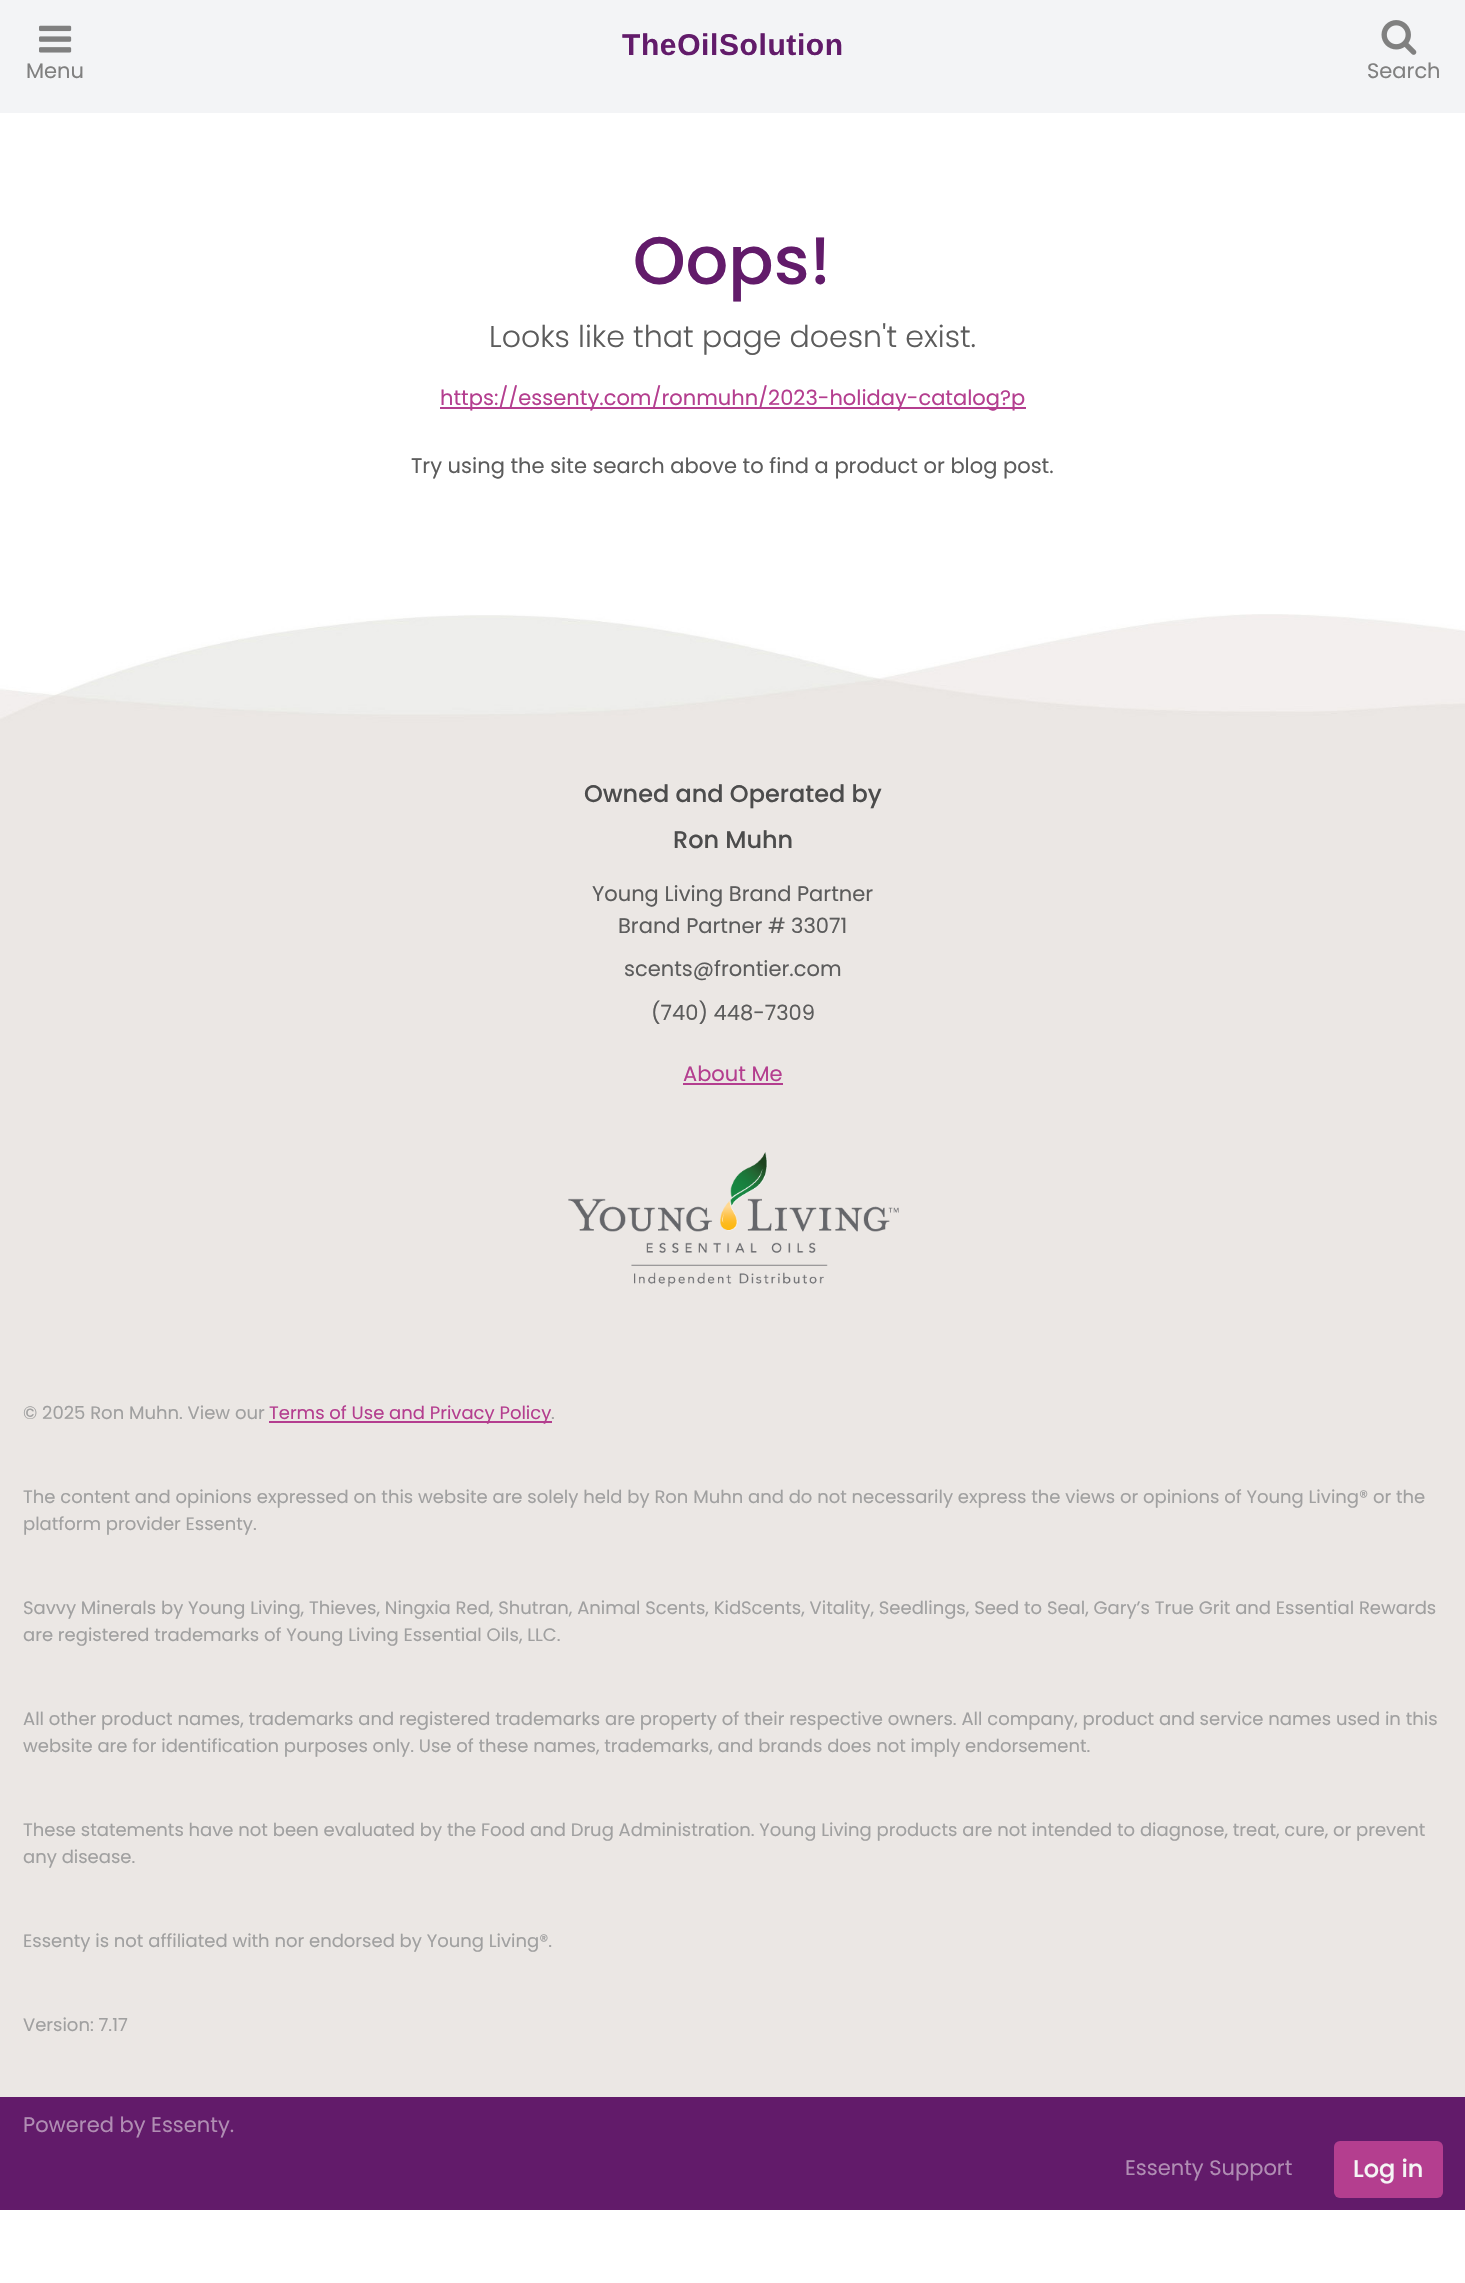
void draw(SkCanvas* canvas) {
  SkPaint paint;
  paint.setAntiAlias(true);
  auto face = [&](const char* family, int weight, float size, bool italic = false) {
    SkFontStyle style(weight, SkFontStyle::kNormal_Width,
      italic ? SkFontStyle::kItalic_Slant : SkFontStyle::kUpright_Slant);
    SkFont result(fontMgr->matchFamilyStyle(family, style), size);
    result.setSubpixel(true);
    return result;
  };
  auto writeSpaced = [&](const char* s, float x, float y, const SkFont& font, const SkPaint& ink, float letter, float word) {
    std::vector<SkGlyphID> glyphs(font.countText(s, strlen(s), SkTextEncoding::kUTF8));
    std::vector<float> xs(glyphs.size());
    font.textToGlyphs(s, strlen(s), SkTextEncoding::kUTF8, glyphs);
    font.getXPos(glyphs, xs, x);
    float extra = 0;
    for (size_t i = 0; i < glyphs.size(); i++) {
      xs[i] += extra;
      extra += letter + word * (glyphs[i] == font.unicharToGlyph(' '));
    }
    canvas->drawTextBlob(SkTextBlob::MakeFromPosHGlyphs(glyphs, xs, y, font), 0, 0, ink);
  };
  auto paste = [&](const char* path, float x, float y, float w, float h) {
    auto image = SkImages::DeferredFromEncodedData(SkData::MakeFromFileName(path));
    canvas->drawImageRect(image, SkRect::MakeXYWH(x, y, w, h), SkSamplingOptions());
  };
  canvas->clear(0xffffffff);
  paint.setColor(0xfff3f4f6);
  canvas->drawRect(SkRect::MakeXYWH(0, 0, 1465, 113), paint);
  paste("img/1.png", 39, 25, 33, 28);
  paste("img/2.png", 1381, 20, 36, 35);
  paint.setColor(0xffb43e8f);
  canvas->drawRect(SkRect::MakeXYWH(440, 407, 586, 2), paint);
  paste("img/3.png", 0, 614, 1465, 112);
  paint.setColor(0xffebe7e4);
  canvas->drawRect(SkRect::MakeXYWH(0, 726, 1465, 1371), paint);
  paint.setColor(0xffb43e8f);
  canvas->drawRect(SkRect::MakeXYWH(683, 1083, 100, 2), paint);
  paste("img/4.png", 568, 1152, 331, 135);
  canvas->drawRect(SkRect::MakeXYWH(269, 1421, 283, 2), paint);
  paint.setColor(0xff621b6a);
  canvas->drawRect(SkRect::MakeXYWH(0, 2097, 1465, 113), paint);
  paint.setColor(0xffb43e8f);
  canvas->drawRoundRect(SkRect::MakeXYWH(1334, 2141, 109, 57), 6, 6, paint);
  auto f0 = face("Liberation Sans", 700, 30);
  paint.setColor(0xff621b6a);
  writeSpaced("TheOilSolution", 622, 55, f0, paint, 0.6f, 0);
  auto f1 = face("Poppins", 400, 21);
  paint.setColor(0xff808080);
  canvas->drawString("Menu", 26, 78, f1, paint);
  canvas->drawString("Search", 1367, 78, f1, paint);
  auto f2 = face("Poppins", 500, 67);
  paint.setColor(0xff621b6a);
  canvas->drawString("Oops!", 633, 284, f2, paint);
  auto f3 = face("Poppins", 300, 30);
  paint.setColor(0xff5c5c5c);
  canvas->drawString("Looks like that page doesn't exist.", 489, 347, f3, paint);
  paint.setColor(0xffb43e8f);
  canvas->drawString("https://essenty.com/ronmuhn/2023-holiday-catalog?p", 440, 405, f1, paint);
  paint.setColor(0xff5c5c5c);
  canvas->drawString("Try using the site search above to find a product or blog post.", 411, 473, f1, paint);
  auto f4 = face("Poppins", 500, 24);
  paint.setColor(0xff4c4c4c);
  canvas->drawString("Owned and Operated by", 584, 802, f4, paint);
  canvas->drawString("Ron Muhn", 673, 848, f4, paint);
  paint.setColor(0xff5c5c5c);
  {
    const struct { const char* s; float x, y; } items[] = {
      {"Young Living Brand Partner", 592, 901},
      {"Brand Partner # 33071", 618, 933},
      {"scents@frontier.com", 624, 976},
      {"(740) 448-7309", 651, 1020},
    };
    for (auto [s, x, y] : items) {
      canvas->drawString(s, x, y, f1, paint);
    }
  }
  paint.setColor(0xffb43e8f);
  canvas->drawString("About Me", 683, 1081, f1, paint);
  auto f5 = face("Poppins", 400, 18);
  paint.setColor(0xffa0a0a0);
  canvas->drawString("© 2025 Ron Muhn. View our", 23, 1419, f5, paint);
  paint.setColor(0xffb43e8f);
  canvas->drawString("Terms of Use and Privacy Policy", 269, 1419, f5, paint);
  paint.setColor(0xffa0a0a0);
  {
    const struct { const char* s; float x, y; } items[] = {
      {".", 551, 1419},
      {"The content and opinions expressed on this website are solely held by Ron Muhn and do not necessarily express the views or opinions of Young Living® or the", 23, 1503},
      {"platform provider Essenty.", 23, 1530},
      {"Savvy Minerals by Young Living, Thieves, Ningxia Red, Shutran, Animal Scents, KidScents, Vitality, Seedlings, Seed to Seal, Gary’s True Grit and Essential Rewards", 23, 1614},
      {"are registered trademarks of Young Living Essential Oils, LLC.", 23, 1641},
      {"All other product names, trademarks and registered trademarks are property of their respective owners. All company, product and service names used in this", 23, 1725},
      {"website are for identification purposes only. Use of these names, trademarks, and brands does not imply endorsement.", 23, 1752},
      {"These statements have not been evaluated by the Food and Drug Administration. Young Living products are not intended to diagnose, treat, cure, or prevent", 23, 1836},
      {"any disease.", 23, 1863},
      {"Essenty is not affiliated with nor endorsed by Young Living®.", 23, 1947},
      {"Version: 7.17", 23, 2031},
    };
    for (auto [s, x, y] : items) {
      canvas->drawString(s, x, y, f5, paint);
    }
  }
  paint.setColor(0xffb08db3);
  canvas->drawString("Powered by Essenty.", 23, 2132, f1, paint);
  canvas->drawString("Essenty Support", 1125, 2175, f1, paint);
  paint.setColor(0xfff5f5f5);
  canvas->drawString("Log in", 1353, 2177, f4, paint);
}
